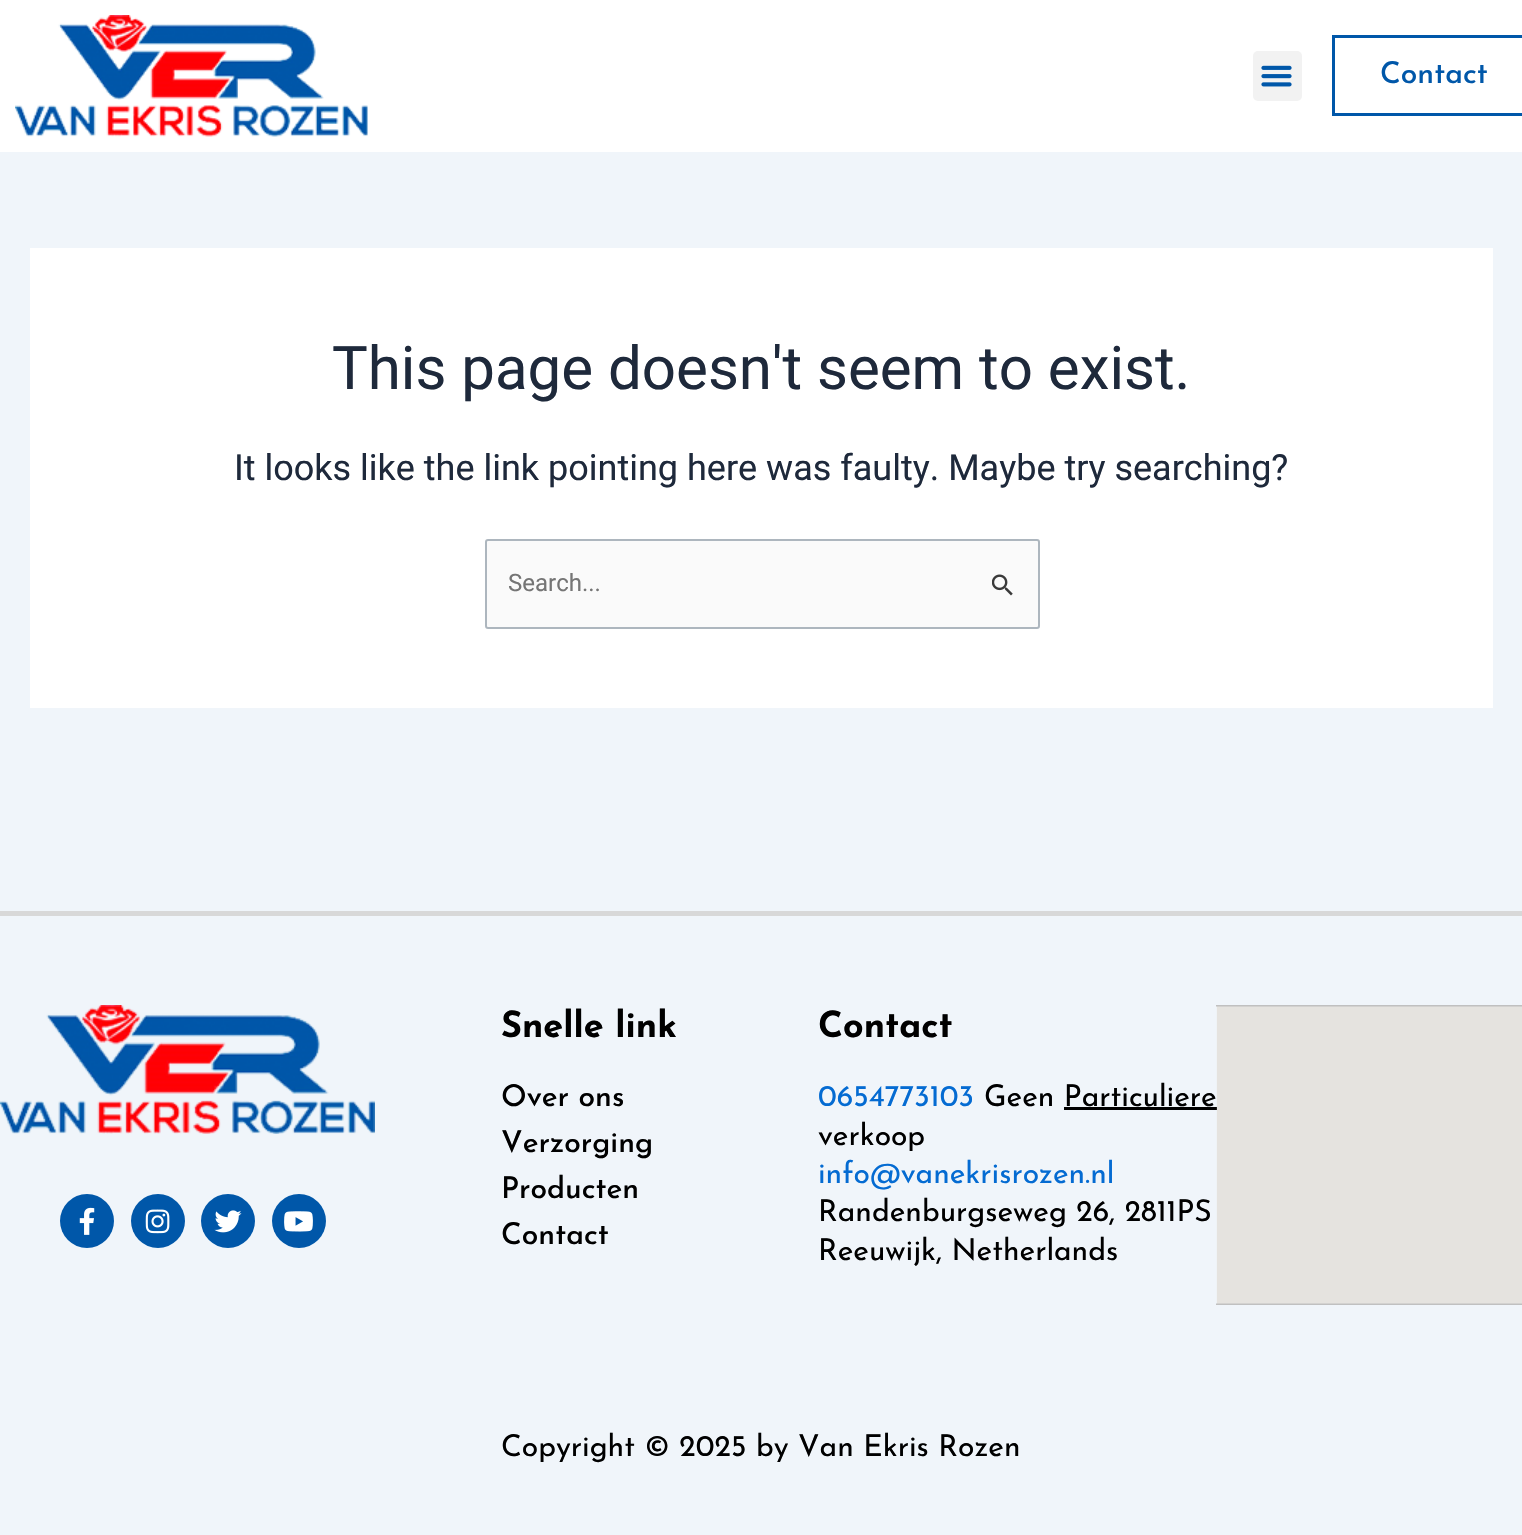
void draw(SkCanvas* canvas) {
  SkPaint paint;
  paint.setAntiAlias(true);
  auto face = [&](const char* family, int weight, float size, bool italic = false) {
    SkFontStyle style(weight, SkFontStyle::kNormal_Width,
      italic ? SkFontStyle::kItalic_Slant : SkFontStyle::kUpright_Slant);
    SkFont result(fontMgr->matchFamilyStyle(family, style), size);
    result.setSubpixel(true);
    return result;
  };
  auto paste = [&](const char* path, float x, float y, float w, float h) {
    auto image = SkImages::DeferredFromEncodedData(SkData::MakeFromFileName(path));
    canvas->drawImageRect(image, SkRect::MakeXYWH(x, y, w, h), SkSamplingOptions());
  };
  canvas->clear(0xfff0f5fa);
  paint.setColor(0xffffffff);
  canvas->drawRect(SkRect::MakeXYWH(0, 0, 1522, 152), paint);
  paste("img/1.png", 15, 15, 353, 122);
  paint.setColor(0xfff2f2f2);
  canvas->drawRoundRect(SkRect::MakeXYWH(1253, 51, 49, 50), 5, 5, paint);
  paste("img/2.png", 1261, 65, 31, 22);
  paint.setStroke(true);
  paint.setStrokeWidth(3);
  paint.setColor(0xff0057a9);
  canvas->drawRect(SkRect::MakeXYWH(1333.5f, 36.5f, 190, 78), paint);
  paint.setStroke(false);
  paint.setColor(0xffffffff);
  canvas->drawRect(SkRect::MakeXYWH(30, 248, 1463, 460), paint);
  paint.setColor(0xfffafafa);
  canvas->drawRoundRect(SkRect::MakeXYWH(486, 540, 553, 88), 2, 2, paint);
  paint.setStroke(true);
  paint.setStrokeWidth(2);
  paint.setColor(0xffadb6be);
  canvas->drawRoundRect(SkRect::MakeXYWH(486, 540, 553, 88), 2, 2, paint);
  paste("img/3.png", 992, 574, 21, 22);
  paint.setStroke(false);
  paint.setColor(0xffd8d8d8);
  canvas->drawRect(SkRect::MakeXYWH(0, 911, 1522, 5), paint);
  paste("img/4.png", 0, 1005, 375, 129);
  paint.setColor(0xff0057a9);
  canvas->drawCircle(87, 1221, 27, paint);
  paste("img/5.png", 79, 1207, 16, 28);
  canvas->drawCircle(158, 1221, 27, paint);
  paste("img/6.png", 145, 1209, 25, 25);
  canvas->drawCircle(228, 1221, 27, paint);
  paste("img/7.png", 214, 1210, 28, 23);
  canvas->drawCircle(299, 1221, 27, paint);
  paste("img/8.png", 284, 1211, 29, 21);
  paint.setColor(0xff000000);
  canvas->drawRect(SkRect::MakeXYWH(1064, 1107, 153, 3), paint);
  paste("img/9.png", 1216, 1005, 306, 300);
  auto f0 = face("Josefin Sans", 500, 30);
  paint.setColor(0xff0057a9);
  canvas->drawString("Contact", 1380, 83, f0, paint);
  auto f1 = face("Roboto", 400, 60);
  paint.setColor(0xff1e293b);
  canvas->drawString("This page doesn't seem to exist.", 332, 389, f1, paint);
  auto f2 = face("Roboto", 400, 36);
  canvas->drawString("It looks like the link pointing here was faulty. Maybe try searching?", 234, 480, f2, paint);
  auto f3 = face("Roboto", 400, 24);
  paint.setColor(0xff757575);
  canvas->drawString("Search...", 508, 591, f3, paint);
  auto f4 = face("Josefin Sans", 700, 36);
  paint.setColor(0xff000000);
  canvas->drawString("Snelle link", 501, 1037, f4, paint);
  {
    const struct { const char* s; float x, y; } items[] = {
      {"Over ons", 501, 1106},
      {"Verzorging", 501, 1152},
      {"Producten", 501, 1198},
      {"Contact", 501, 1244},
    };
    for (auto [s, x, y] : items) {
      canvas->drawString(s, x, y, f0, paint);
    }
  }
  canvas->drawString("Contact", 818, 1037, f4, paint);
  auto f5 = face("Josefin Sans", 400, 30);
  paint.setColor(0xff046bd2);
  canvas->drawString("0654773103", 818, 1106, f5, paint);
  paint.setColor(0xff000000);
  canvas->drawString("Geen Particuliere", 984, 1106, f5, paint);
  canvas->drawString("verkoop", 818, 1145, f5, paint);
  paint.setColor(0xff046bd2);
  canvas->drawString("info@vanekrisrozen.nl", 818, 1183, f5, paint);
  paint.setColor(0xff000000);
  {
    const struct { const char* s; float x, y; } items[] = {
      {"Randenburgseweg 26, 2811PS", 818, 1221},
      {"Reeuwijk, Netherlands", 818, 1260},
      {"Copyright © 2025 by Van Ekris Rozen", 501, 1456},
    };
    for (auto [s, x, y] : items) {
      canvas->drawString(s, x, y, f5, paint);
    }
  }
}
